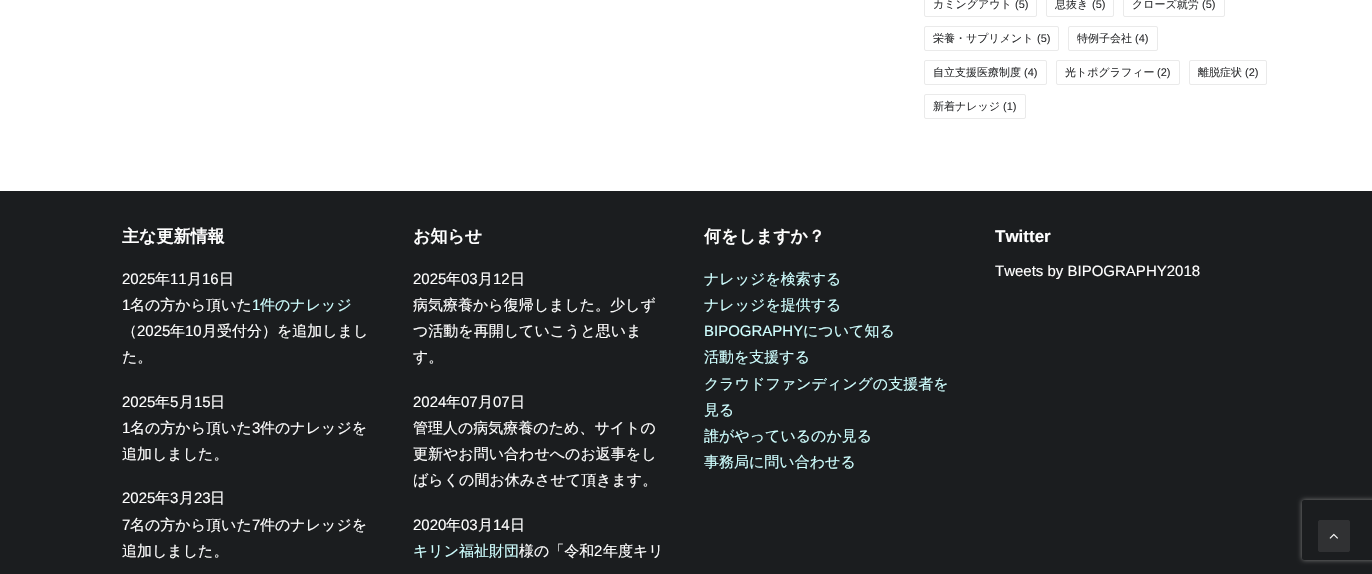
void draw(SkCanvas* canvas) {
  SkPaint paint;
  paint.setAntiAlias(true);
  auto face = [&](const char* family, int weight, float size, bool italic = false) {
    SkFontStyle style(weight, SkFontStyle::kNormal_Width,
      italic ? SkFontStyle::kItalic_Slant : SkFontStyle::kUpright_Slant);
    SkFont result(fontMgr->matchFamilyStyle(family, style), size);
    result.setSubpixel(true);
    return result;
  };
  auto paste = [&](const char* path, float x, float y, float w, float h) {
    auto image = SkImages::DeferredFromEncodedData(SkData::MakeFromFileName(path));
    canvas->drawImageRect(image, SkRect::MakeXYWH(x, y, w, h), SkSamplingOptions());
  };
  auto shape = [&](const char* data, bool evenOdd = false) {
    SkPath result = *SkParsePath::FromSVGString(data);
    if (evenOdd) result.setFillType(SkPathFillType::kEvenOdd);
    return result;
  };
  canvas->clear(0xffffffff);
  paint.setStroke(true);
  paint.setStrokeWidth(1);
  paint.setColor(0xffeaeaea);
  canvas->drawRoundRect(SkRect::MakeXYWH(924.5f, -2.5f, 112, 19), 1.5f, 1.5f, paint);
  canvas->drawRoundRect(SkRect::MakeXYWH(1046.5f, -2.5f, 67, 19), 1.5f, 1.5f, paint);
  canvas->drawRoundRect(SkRect::MakeXYWH(1123.5f, -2.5f, 101, 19), 1.5f, 1.5f, paint);
  canvas->drawRoundRect(SkRect::MakeXYWH(924.5f, 26.5f, 134, 24), 1.5f, 1.5f, paint);
  canvas->drawRoundRect(SkRect::MakeXYWH(1068.5f, 26.5f, 89, 24), 1.5f, 1.5f, paint);
  canvas->drawRoundRect(SkRect::MakeXYWH(924.5f, 60.5f, 122, 24), 1.5f, 1.5f, paint);
  canvas->drawRoundRect(SkRect::MakeXYWH(1056.5f, 60.5f, 123, 24), 1.5f, 1.5f, paint);
  canvas->drawRoundRect(SkRect::MakeXYWH(1189.5f, 60.5f, 77, 24), 1.5f, 1.5f, paint);
  canvas->drawRoundRect(SkRect::MakeXYWH(924.5f, 94.5f, 101, 24), 1.5f, 1.5f, paint);
  paint.setStroke(false);
  paint.setColor(0xff1b1d1f);
  canvas->drawRect(SkRect::MakeXYWH(0, 191, 1372, 383), paint);
  canvas->save();
  canvas->clipPath(shape("M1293 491H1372V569H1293ZM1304 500H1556C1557 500 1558 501 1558 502V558C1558 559 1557 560 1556 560H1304C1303 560 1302 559 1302 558V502C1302 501 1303 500 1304 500Z", true), true);
  paint.setColor(0xff808080);
  paint.setMaskFilter(SkMaskFilter::MakeBlur(kNormal_SkBlurStyle, 2.5f));
  canvas->drawRoundRect(SkRect::MakeXYWH(1302, 500, 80, 60), 2, 2, paint);
  paint.setMaskFilter(nullptr);
  canvas->restore();
  paint.setColor(0xff303133);
  canvas->drawRoundRect(SkRect::MakeXYWH(1318.5f, 520.5f, 31, 31), 1.5f, 1.5f, paint);
  paint.setStroke(true);
  canvas->drawRoundRect(SkRect::MakeXYWH(1318.5f, 520.5f, 31, 31), 1.5f, 1.5f, paint);
  paste("img/1.png", 1329, 533, 9, 6);
  auto f0 = face("WenQuanYi Zen Hei", 500, 11);
  paint.setStroke(false);
  canvas->drawString("カミングアウト", 933, 8, f0, paint);
  auto f1 = face("Liberation Sans", 400, 11);
  canvas->drawString("(5)", 1015, 8, f1, paint);
  canvas->drawString("息抜き", 1055, 8, f0, paint);
  canvas->drawString("(5)", 1092, 8, f1, paint);
  canvas->drawString("クローズ就労", 1132, 8, f0, paint);
  canvas->drawString("(5)", 1202, 8, f1, paint);
  canvas->drawString("栄養・サプリメント", 933, 42, f0, paint);
  canvas->drawString("(5)", 1037, 42, f1, paint);
  canvas->drawString("特例子会社", 1077, 42, f0, paint);
  canvas->drawString("(4)", 1135, 42, f1, paint);
  canvas->drawString("自立支援医療制度", 933, 76, f0, paint);
  canvas->drawString("(4)", 1024, 76, f1, paint);
  canvas->drawString("光トポグラフィー", 1065, 76, f0, paint);
  canvas->drawString("(2)", 1157, 76, f1, paint);
  canvas->drawString("離脱症状", 1198, 76, f0, paint);
  canvas->drawString("(2)", 1245, 76, f1, paint);
  canvas->drawString("新着ナレッジ", 933, 110, f0, paint);
  canvas->drawString("(1)", 1003, 110, f1, paint);
  auto f2 = face("WenQuanYi Zen Hei", 700, 17);
  paint.setColor(0xffffffff);
  canvas->drawString("主な更新情報", 122, 242, f2, paint);
  auto f3 = face("Liberation Sans", 400, 15);
  canvas->drawString("2025", 122, 284, f3, paint);
  auto f4 = face("WenQuanYi Zen Hei", 500, 15);
  canvas->drawString("年", 155, 284, f4, paint);
  canvas->drawString("11", 170, 284, f3, paint);
  canvas->drawString("月", 187, 284, f4, paint);
  canvas->drawString("16", 202, 284, f3, paint);
  canvas->drawString("日", 219, 284, f4, paint);
  canvas->drawString("1", 122, 310, f3, paint);
  canvas->drawString("名の方から頂いた", 130, 310, f4, paint);
  paint.setColor(0xffcfffff);
  canvas->drawString("1", 252, 310, f3, paint);
  canvas->drawString("件のナレッジ", 260, 310, f4, paint);
  paint.setColor(0xffffffff);
  canvas->drawString("（", 122, 336, f4, paint);
  canvas->drawString("2025", 137, 336, f3, paint);
  canvas->drawString("年", 170, 336, f4, paint);
  canvas->drawString("10", 185, 336, f3, paint);
  canvas->drawString("月受付分）を追加しまし", 202, 336, f4, paint);
  canvas->drawString("た。", 122, 362, f4, paint);
  canvas->drawString("2025", 122, 407, f3, paint);
  canvas->drawString("年", 155, 407, f4, paint);
  canvas->drawString("5", 170, 407, f3, paint);
  canvas->drawString("月", 179, 407, f4, paint);
  canvas->drawString("15", 194, 407, f3, paint);
  canvas->drawString("日", 210, 407, f4, paint);
  canvas->drawString("1", 122, 433, f3, paint);
  canvas->drawString("名の方から頂いた", 130, 433, f4, paint);
  canvas->drawString("3", 252, 433, f3, paint);
  canvas->drawString("件のナレッジを", 260, 433, f4, paint);
  canvas->drawString("追加しました。", 122, 459, f4, paint);
  canvas->drawString("2025", 122, 503, f3, paint);
  canvas->drawString("年", 155, 503, f4, paint);
  canvas->drawString("3", 170, 503, f3, paint);
  canvas->drawString("月", 179, 503, f4, paint);
  canvas->drawString("23", 194, 503, f3, paint);
  canvas->drawString("日", 210, 503, f4, paint);
  canvas->drawString("7", 122, 530, f3, paint);
  canvas->drawString("名の方から頂いた", 130, 530, f4, paint);
  canvas->drawString("7", 252, 530, f3, paint);
  canvas->drawString("件のナレッジを", 260, 530, f4, paint);
  canvas->drawString("追加しました。", 122, 556, f4, paint);
  canvas->drawString("お知らせ", 413, 242, f2, paint);
  canvas->drawString("2025", 413, 284, f3, paint);
  canvas->drawString("年", 446, 284, f4, paint);
  canvas->drawString("03", 461, 284, f3, paint);
  canvas->drawString("月", 478, 284, f4, paint);
  canvas->drawString("12", 493, 284, f3, paint);
  {
    const struct { const char* s; float x, y; } items[] = {
      {"日", 510, 284},
      {"病気療養から復帰しました。少しず", 413, 310},
      {"つ活動を再開していこうと思いま", 413, 336},
      {"す。", 413, 362},
    };
    for (auto [s, x, y] : items) {
      canvas->drawString(s, x, y, f4, paint);
    }
  }
  canvas->drawString("2024", 413, 407, f3, paint);
  canvas->drawString("年", 446, 407, f4, paint);
  canvas->drawString("07", 461, 407, f3, paint);
  canvas->drawString("月", 478, 407, f4, paint);
  canvas->drawString("07", 493, 407, f3, paint);
  {
    const struct { const char* s; float x, y; } items[] = {
      {"日", 510, 407},
      {"管理人の病気療養のため、サイトの", 413, 433},
      {"更新やお問い合わせへのお返事をし", 413, 459},
      {"ばらくの間お休みさせて頂きます。", 413, 485},
    };
    for (auto [s, x, y] : items) {
      canvas->drawString(s, x, y, f4, paint);
    }
  }
  canvas->drawString("2020", 413, 530, f3, paint);
  canvas->drawString("年", 446, 530, f4, paint);
  canvas->drawString("03", 461, 530, f3, paint);
  canvas->drawString("月", 478, 530, f4, paint);
  canvas->drawString("14", 493, 530, f3, paint);
  canvas->drawString("日", 510, 530, f4, paint);
  paint.setColor(0xffcfffff);
  canvas->drawString("キリン福祉財団", 413, 556, f4, paint);
  paint.setColor(0xffffffff);
  canvas->drawString("様の「令和", 519, 556, f4, paint);
  canvas->drawString("2", 594, 556, f3, paint);
  canvas->drawString("年度キリ", 603, 556, f4, paint);
  canvas->drawString("何をしますか？", 704, 242, f2, paint);
  paint.setColor(0xffcfffff);
  canvas->drawString("ナレッジを検索する", 704, 284, f4, paint);
  canvas->drawString("ナレッジを提供する", 704, 310, f4, paint);
  canvas->drawString("BIPOGRAPHY", 704, 336, f3, paint);
  {
    const struct { const char* s; float x, y; } items[] = {
      {"について知る", 803, 336},
      {"活動を支援する", 704, 362},
      {"クラウドファンディングの支援者を", 704, 389},
      {"見る", 704, 415},
      {"誰がやっているのか見る", 704, 441},
      {"事務局に問い合わせる", 704, 467},
    };
    for (auto [s, x, y] : items) {
      canvas->drawString(s, x, y, f4, paint);
    }
  }
  auto f5 = face("Liberation Sans", 700, 17);
  paint.setColor(0xffffffff);
  canvas->drawString("Twitter", 995, 242, f5, paint);
  canvas->drawString("Tweets by BIPOGRAPHY2018", 995, 276, f3, paint);
}
